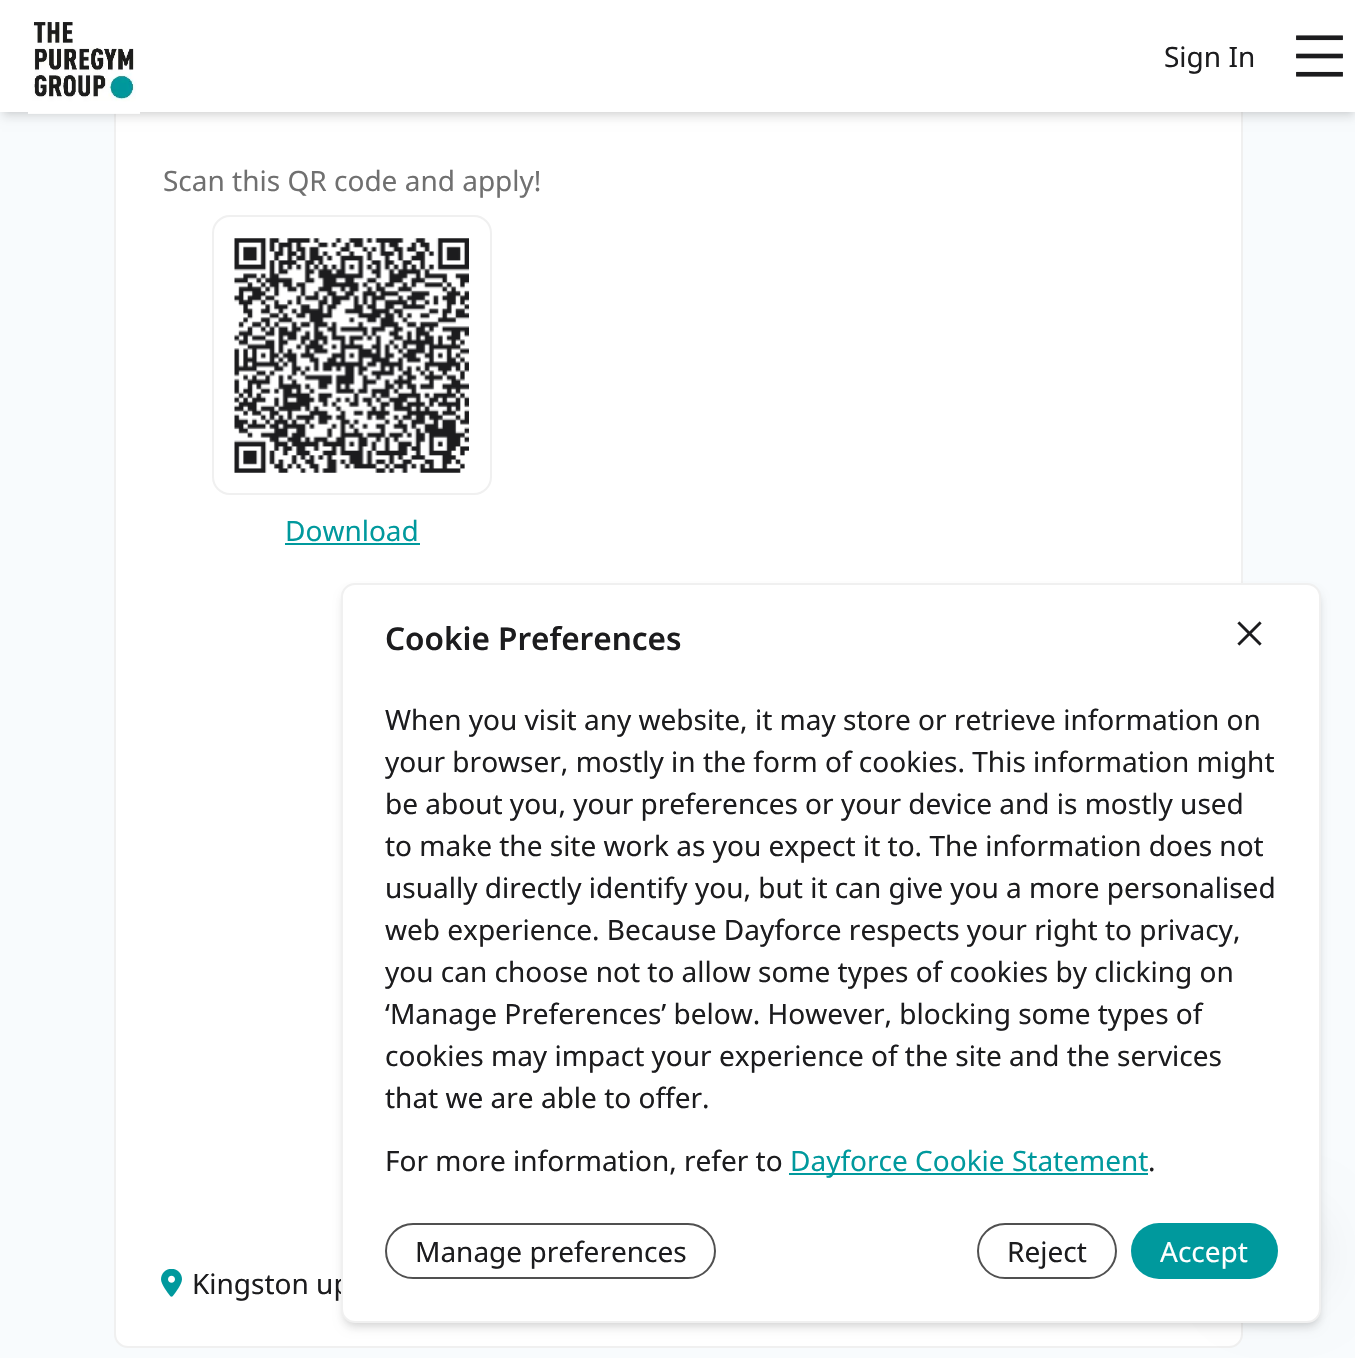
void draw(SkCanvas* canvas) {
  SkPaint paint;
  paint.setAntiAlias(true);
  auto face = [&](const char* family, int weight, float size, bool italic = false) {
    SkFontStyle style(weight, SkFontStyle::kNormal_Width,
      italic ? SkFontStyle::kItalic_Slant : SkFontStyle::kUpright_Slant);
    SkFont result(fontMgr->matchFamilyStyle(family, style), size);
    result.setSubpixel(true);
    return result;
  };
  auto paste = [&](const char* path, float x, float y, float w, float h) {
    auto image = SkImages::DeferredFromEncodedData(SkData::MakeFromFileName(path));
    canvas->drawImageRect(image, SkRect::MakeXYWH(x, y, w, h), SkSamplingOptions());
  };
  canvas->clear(0xfff8fbfd);
  paint.setColor(0xffffffff);
  canvas->drawRoundRect(SkRect::MakeXYWH(115, -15, 1127, 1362), 13, 13, paint);
  paint.setStroke(true);
  paint.setStrokeWidth(2);
  paint.setColor(0xfff0f0f0);
  canvas->drawRoundRect(SkRect::MakeXYWH(115, -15, 1127, 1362), 13, 13, paint);
  paint.setStroke(false);
  paint.setColor(0x1a000000);
  paint.setMaskFilter(SkMaskFilter::MakeBlur(kNormal_SkBlurStyle, 3.5f));
  canvas->drawRect(SkRect::MakeXYWH(4, 7, 1349, 105), paint);
  paint.setMaskFilter(nullptr);
  paint.setMaskFilter(SkMaskFilter::MakeBlur(kNormal_SkBlurStyle, 5));
  canvas->drawRect(SkRect::MakeXYWH(2, 9, 1353, 108), paint);
  paint.setMaskFilter(nullptr);
  paint.setColor(0xffffffff);
  canvas->drawRect(SkRect::MakeXYWH(0, 0, 1355, 112), paint);
  paste("img/1.png", 28, 22, 112, 92);
  paste("img/2.png", 1296, 35, 47, 42);
  paint.setStroke(true);
  paint.setColor(0xfff0f0f0);
  canvas->drawRoundRect(SkRect::MakeXYWH(213, 216, 278, 278), 17, 17, paint);
  paste("img/3.png", 234, 238, 235, 235);
  paint.setStroke(false);
  paint.setColor(0xff00999d);
  canvas->drawRect(SkRect::MakeXYWH(285, 543, 135, 2), paint);
  paste("img/4.png", 161, 1269, 21, 28);
  paint.setColor(0x0d000000);
  paint.setMaskFilter(SkMaskFilter::MakeBlur(kNormal_SkBlurStyle, 24.5f));
  canvas->drawRoundRect(SkRect::MakeXYWH(1230, 1206, 98, 98), 49, 49, paint);
  paint.setMaskFilter(nullptr);
  paint.setColor(0x1a000000);
  paint.setMaskFilter(SkMaskFilter::MakeBlur(kNormal_SkBlurStyle, 3.5f));
  canvas->drawRoundRect(SkRect::MakeXYWH(345, 590, 973, 733), 11, 11, paint);
  paint.setMaskFilter(nullptr);
  paint.setMaskFilter(SkMaskFilter::MakeBlur(kNormal_SkBlurStyle, 5));
  canvas->drawRoundRect(SkRect::MakeXYWH(343, 592, 977, 736), 12, 12, paint);
  paint.setMaskFilter(nullptr);
  auto f0 = face("Noto Sans", 400, 28);
  paint.setColor(0xff1c1c1e);
  canvas->drawString("Sign In", 1164, 67, f0, paint);
  paint.setColor(0xff707070);
  canvas->drawString("Scan this QR code and apply!", 163, 191, f0, paint);
  paint.setColor(0xff00999d);
  canvas->drawString("Download", 285, 541, f0, paint);
  paint.setColor(0xff1c1c1e);
  canvas->drawString("Kingston up", 192, 1294, f0, paint);
  paint.setColor(0xffffffff);
  canvas->drawRoundRect(SkRect::MakeXYWH(342, 584, 978, 738), 13, 13, paint);
  paint.setStroke(true);
  paint.setColor(0xfff0f0f0);
  canvas->drawRoundRect(SkRect::MakeXYWH(342, 584, 978, 738), 13, 13, paint);
  auto f1 = face("Noto Sans", 600, 31.5f);
  paint.setStroke(false);
  paint.setColor(0xff1c1c1e);
  canvas->drawString("Cookie Preferences", 385, 650, f1, paint);
  paste("img/5.png", 1237, 621, 25, 25);
  {
    const struct { const char* s; float x, y; } items[] = {
      {"When you visit any website, it may store or retrieve information on", 385, 730},
      {"your browser, mostly in the form of cookies. This information might", 385, 772},
      {"be about you, your preferences or your device and is mostly used", 385, 814},
      {"to make the site work as you expect it to. The information does not", 385, 856},
      {"usually directly identify you, but it can give you a more personalised", 385, 898},
      {"web experience. Because Dayforce respects your right to privacy,", 385, 940},
      {"you can choose not to allow some types of cookies by clicking on", 385, 982},
      {"‘Manage Preferences’ below. However, blocking some types of", 385, 1024},
      {"cookies may impact your experience of the site and the services", 385, 1066},
      {"that we are able to offer.", 385, 1108},
      {"For more information, refer to", 385, 1171},
    };
    for (auto [s, x, y] : items) {
      canvas->drawString(s, x, y, f0, paint);
    }
  }
  paint.setColor(0xff00999d);
  canvas->drawRect(SkRect::MakeXYWH(789, 1173, 359, 2), paint);
  canvas->drawString("Dayforce Cookie Statement", 790, 1171, f0, paint);
  paint.setColor(0xff1c1c1e);
  canvas->drawString(".", 1148, 1171, f0, paint);
  paint.setStroke(true);
  paint.setColor(0xff505050);
  canvas->drawRoundRect(SkRect::MakeXYWH(386, 1224, 329, 54), 27, 27, paint);
  paint.setStroke(false);
  paint.setColor(0xff1c1c1e);
  canvas->drawString("Manage preferences", 415, 1262, f0, paint);
  paint.setStroke(true);
  paint.setColor(0xff505050);
  canvas->drawRoundRect(SkRect::MakeXYWH(978, 1224, 138, 54), 27, 27, paint);
  paint.setStroke(false);
  paint.setColor(0xff1c1c1e);
  canvas->drawString("Reject", 1007, 1262, f0, paint);
  paint.setColor(0xff00999d);
  canvas->drawRoundRect(SkRect::MakeXYWH(1131, 1223, 147, 56), 28, 28, paint);
  paint.setColor(0xffffffff);
  canvas->drawString("Accept", 1160, 1262, f0, paint);
}
